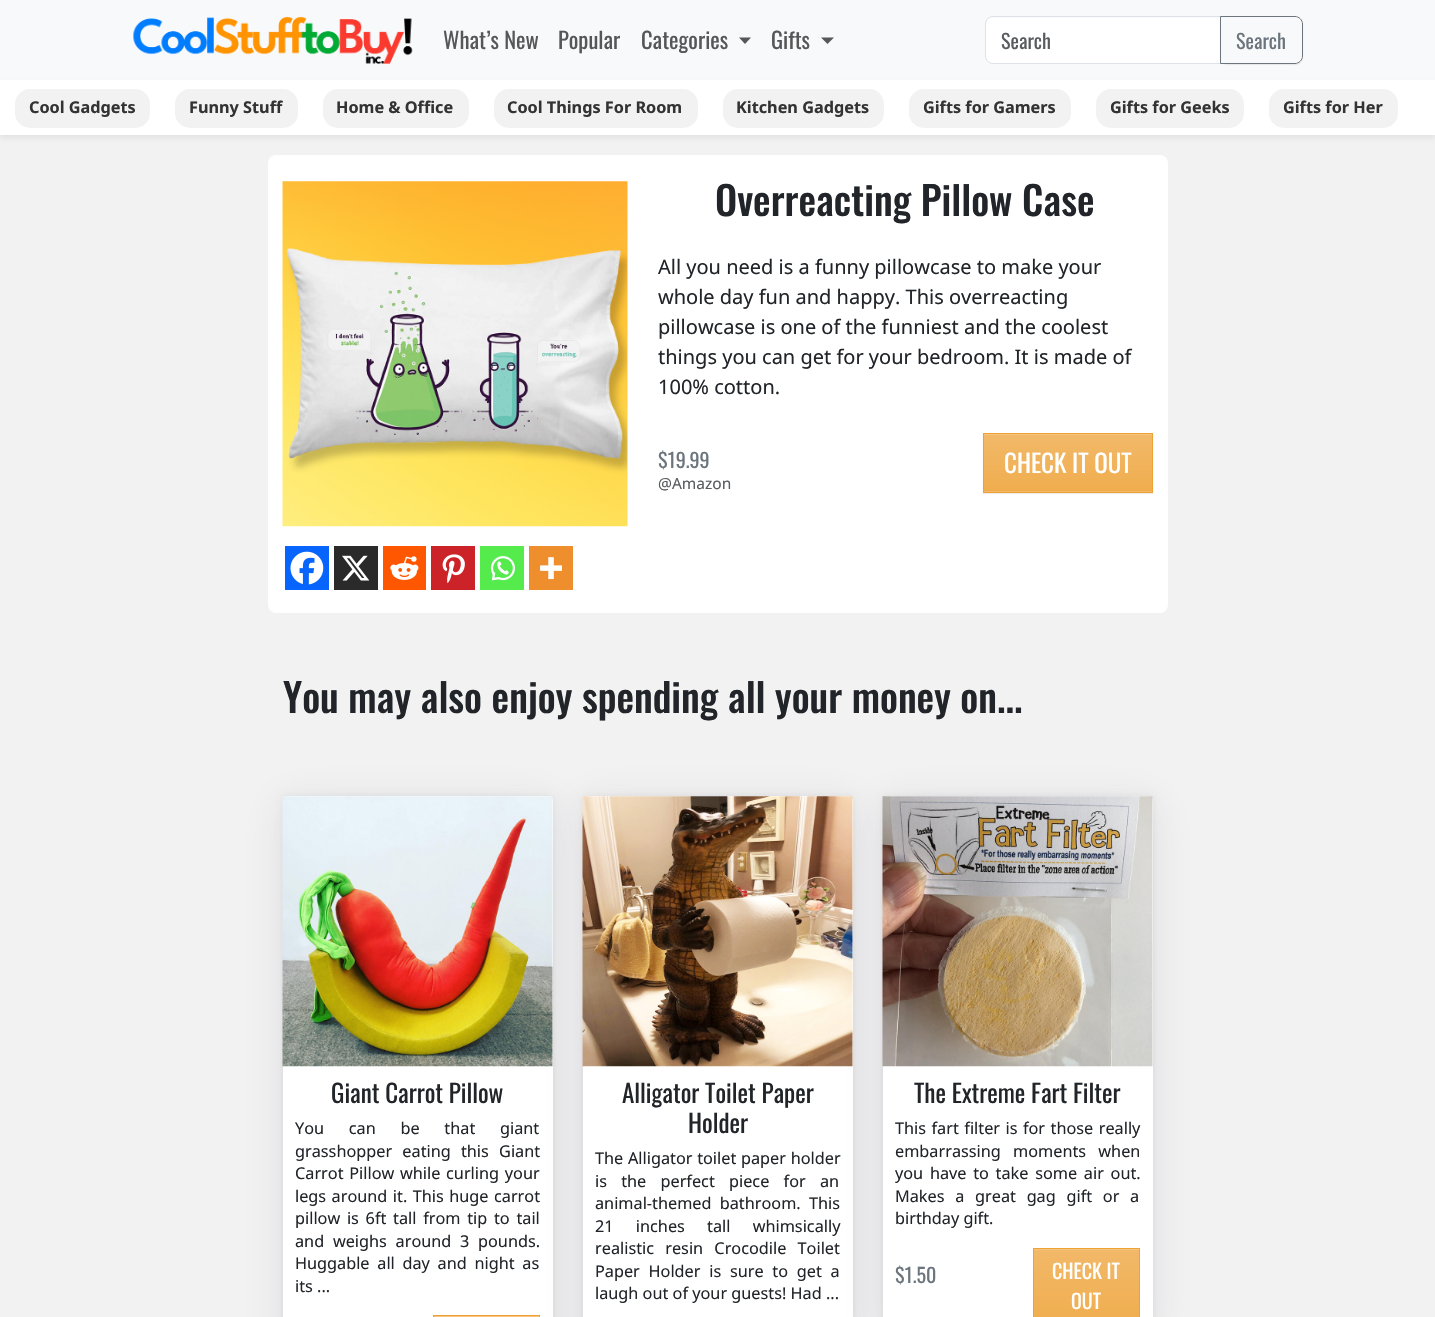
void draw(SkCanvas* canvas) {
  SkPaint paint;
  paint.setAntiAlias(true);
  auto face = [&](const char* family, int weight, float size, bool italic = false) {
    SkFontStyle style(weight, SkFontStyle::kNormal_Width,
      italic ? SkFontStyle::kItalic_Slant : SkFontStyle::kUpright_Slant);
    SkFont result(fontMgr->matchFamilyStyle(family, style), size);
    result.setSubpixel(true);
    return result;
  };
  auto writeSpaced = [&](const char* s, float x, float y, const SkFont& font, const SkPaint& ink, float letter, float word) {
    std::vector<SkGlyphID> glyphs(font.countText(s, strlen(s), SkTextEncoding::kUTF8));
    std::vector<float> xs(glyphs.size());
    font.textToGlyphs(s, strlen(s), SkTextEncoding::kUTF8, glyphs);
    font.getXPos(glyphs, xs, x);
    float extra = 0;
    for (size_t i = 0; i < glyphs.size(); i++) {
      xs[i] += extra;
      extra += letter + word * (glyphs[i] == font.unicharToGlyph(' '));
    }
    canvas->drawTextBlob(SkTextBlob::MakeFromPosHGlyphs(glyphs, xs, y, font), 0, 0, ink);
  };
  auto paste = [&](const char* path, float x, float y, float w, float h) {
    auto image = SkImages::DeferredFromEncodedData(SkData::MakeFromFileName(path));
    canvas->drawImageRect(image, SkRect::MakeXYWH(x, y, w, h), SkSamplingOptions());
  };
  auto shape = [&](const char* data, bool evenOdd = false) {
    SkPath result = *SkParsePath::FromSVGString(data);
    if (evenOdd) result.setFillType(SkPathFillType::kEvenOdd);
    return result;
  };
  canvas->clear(0xfff2f2f2);
  paint.setColor(0xfff8f9fa);
  canvas->drawRect(SkRect::MakeXYWH(0, 0, 1435, 80), paint);
  paste("img/1.png", 133, 16, 280, 48);
  paint.setColor(0xff575758);
  canvas->drawPath(shape("M739 37.5H751L745 44Z"), paint);
  canvas->drawPath(shape("M821 37.5H834L827.5 44Z"), paint);
  paint.setColor(0xffffffff);
  canvas->drawPath(shape("M992 18H1220V63H992C988.5 63 986 60.5 986 57V24C986 20.5 988.5 18 992 18Z"), paint);
  paint.setStroke(true);
  paint.setStrokeWidth(1);
  paint.setColor(0xffdee2e6);
  canvas->drawPath(shape("M993 16.5H1220.5V63.5H993C989 63.5 985.5 60 985.5 56V24C985.5 20 989 16.5 993 16.5Z"), paint);
  canvas->save();
  canvas->clipPath(shape("M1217 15H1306V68H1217ZM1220 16H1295C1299.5 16 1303 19.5 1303 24V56C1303 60.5 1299.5 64 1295 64H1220Z", true), true);
  paint.setStroke(false);
  paint.setColor(0x12000000);
  paint.setMaskFilter(SkMaskFilter::MakeBlur(kNormal_SkBlurStyle, 0.5f));
  canvas->drawRoundRect(SkRect::MakeXYWH(1220, 18, 83, 47), 8, 8, paint);
  paint.setMaskFilter(nullptr);
  canvas->restore();
  paint.setStroke(true);
  paint.setColor(0xff6c757d);
  canvas->drawPath(shape("M1220.5 16.5H1295C1299 16.5 1302.5 20 1302.5 24V56C1302.5 60 1299 63.5 1295 63.5H1220.5Z"), paint);
  paint.setStroke(false);
  paint.setColor(0x12000000);
  paint.setMaskFilter(SkMaskFilter::MakeBlur(kNormal_SkBlurStyle, 2.5f));
  canvas->drawRect(SkRect::MakeXYWH(0, 83, 1435, 55), paint);
  paint.setMaskFilter(nullptr);
  paint.setColor(0xffffffff);
  canvas->drawRect(SkRect::MakeXYWH(0, 80, 1435, 55), paint);
  paint.setColor(0xfff2f2f2);
  canvas->drawRoundRect(SkRect::MakeXYWH(15, 89, 135, 39), 15, 15, paint);
  canvas->drawRoundRect(SkRect::MakeXYWH(175, 89, 123, 39), 15, 15, paint);
  canvas->drawRoundRect(SkRect::MakeXYWH(323, 89, 146, 39), 15, 15, paint);
  canvas->drawRoundRect(SkRect::MakeXYWH(494, 89, 204, 39), 15, 15, paint);
  canvas->drawRoundRect(SkRect::MakeXYWH(723, 89, 161, 39), 15, 15, paint);
  canvas->drawRoundRect(SkRect::MakeXYWH(909, 89, 162, 39), 15, 15, paint);
  canvas->drawRoundRect(SkRect::MakeXYWH(1096, 89, 148, 39), 15, 15, paint);
  canvas->drawRoundRect(SkRect::MakeXYWH(1269, 89, 129, 39), 15, 15, paint);
  paint.setColor(0xffffffff);
  canvas->drawRoundRect(SkRect::MakeXYWH(268, 155, 900, 458), 8, 8, paint);
  paste("img/2.png", 282, 181, 346, 346);
  paint.setColor(0x12000000);
  paint.setMaskFilter(SkMaskFilter::MakeBlur(kNormal_SkBlurStyle, 0.5f));
  canvas->drawRect(SkRect::MakeXYWH(983, 434, 170, 60), paint);
  paint.setMaskFilter(nullptr);
  {
    const SkColor colors[] = {0xfff2b969, 0xfff0ad4e};
    const float stops[] = {0, 1};
    const SkPoint ends[] = {{1068, 434}, {1068, 491}};
    paint.setShader(SkGradientShader::MakeLinear(ends, colors, stops, 2, SkTileMode::kClamp));
    paint.setAlpha(255);
  }
  canvas->drawRect(SkRect::MakeXYWH(984, 434, 168, 57), paint);
  {
    const SkColor colors[] = {0xfff2b969, 0xfff0ad4e};
    const float stops[] = {0, 1};
    const SkPoint ends[] = {{1068, 491}, {1068, 549}};
    paint.setShader(SkGradientShader::MakeLinear(ends, colors, stops, 2, SkTileMode::kClamp));
    paint.setAlpha(255);
  }
  canvas->drawRect(SkRect::MakeXYWH(983, 491, 170, 1), paint);
  paint.setShader(nullptr);
  paint.setColor(0xfff4c480);
  canvas->drawRect(SkRect::MakeXYWH(984, 434, 167, 1), paint);
  paint.setStroke(true);
  paint.setColor(0xffeea236);
  canvas->drawRect(SkRect::MakeXYWH(983.5f, 433.5f, 169, 59), paint);
  paint.setStroke(false);
  paint.setColor(0xff0765fe);
  canvas->drawRect(SkRect::MakeXYWH(285, 546, 44, 44), paint);
  paste("img/3.png", 290, 551, 34, 34);
  paint.setColor(0xff2a2a2a);
  canvas->drawRect(SkRect::MakeXYWH(334, 546, 44, 44), paint);
  paste("img/4.png", 342, 555, 28, 26);
  paint.setColor(0xffff5700);
  canvas->drawRect(SkRect::MakeXYWH(383, 546, 43, 44), paint);
  paste("img/5.png", 390, 556, 29, 24);
  paint.setColor(0xffcc2329);
  canvas->drawRect(SkRect::MakeXYWH(431, 546, 44, 44), paint);
  paste("img/6.png", 442, 554, 23, 30);
  paint.setColor(0xff55eb4c);
  canvas->drawRect(SkRect::MakeXYWH(480, 546, 44, 44), paint);
  paste("img/7.png", 490, 556, 25, 25);
  paint.setColor(0xffee8e2d);
  canvas->drawRect(SkRect::MakeXYWH(529, 546, 44, 44), paint);
  paste("img/8.png", 540, 557, 22, 23);
  paint.setColor(0x12000000);
  paint.setMaskFilter(SkMaskFilter::MakeBlur(kNormal_SkBlurStyle, 3));
  canvas->drawRoundRect(SkRect::MakeXYWH(283, 796, 270, 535), 5, 5, paint);
  paint.setMaskFilter(nullptr);
  paint.setColor(0x1a32325d);
  paint.setMaskFilter(SkMaskFilter::MakeBlur(kNormal_SkBlurStyle, 22));
  canvas->drawRoundRect(SkRect::MakeXYWH(283, 803, 270, 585), 5, 5, paint);
  paint.setMaskFilter(nullptr);
  paint.setColor(0xffffffff);
  canvas->drawRoundRect(SkRect::MakeXYWH(283, 796, 270, 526), 5, 5, paint);
  paste("img/9.png", 282, 796, 271, 271);
  paint.setColor(0xfff4c480);
  canvas->drawRect(SkRect::MakeXYWH(433.5f, 1315.5f, 106, 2), paint);
  paint.setStroke(true);
  paint.setColor(0xffeea236);
  canvas->drawRect(SkRect::MakeXYWH(433.5f, 1315.5f, 106, 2), paint);
  paint.setStroke(false);
  paint.setColor(0x12000000);
  paint.setMaskFilter(SkMaskFilter::MakeBlur(kNormal_SkBlurStyle, 3));
  canvas->drawRoundRect(SkRect::MakeXYWH(583, 796, 270, 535), 5, 5, paint);
  paint.setMaskFilter(nullptr);
  paint.setColor(0x1a32325d);
  paint.setMaskFilter(SkMaskFilter::MakeBlur(kNormal_SkBlurStyle, 22));
  canvas->drawRoundRect(SkRect::MakeXYWH(583, 803, 270, 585), 5, 5, paint);
  paint.setMaskFilter(nullptr);
  paint.setColor(0xffffffff);
  canvas->drawRoundRect(SkRect::MakeXYWH(583, 796, 270, 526), 5, 5, paint);
  paste("img/10.png", 582, 796, 271, 271);
  paint.setColor(0x12000000);
  paint.setMaskFilter(SkMaskFilter::MakeBlur(kNormal_SkBlurStyle, 3));
  canvas->drawRoundRect(SkRect::MakeXYWH(883, 796, 270, 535), 5, 5, paint);
  paint.setMaskFilter(nullptr);
  paint.setColor(0x1a32325d);
  paint.setMaskFilter(SkMaskFilter::MakeBlur(kNormal_SkBlurStyle, 22));
  canvas->drawRoundRect(SkRect::MakeXYWH(883, 803, 270, 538), 5, 5, paint);
  paint.setMaskFilter(nullptr);
  paint.setColor(0xffffffff);
  canvas->drawRoundRect(SkRect::MakeXYWH(883, 796, 270, 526), 5, 5, paint);
  paste("img/11.png", 882, 796, 271, 271);
  {
    const SkColor colors[] = {0xfff2b969, 0xfff0ad4e};
    const float stops[] = {0, 1};
    const SkPoint ends[] = {{1086, 1249}, {1086, 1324}};
    paint.setShader(SkGradientShader::MakeLinear(ends, colors, stops, 2, SkTileMode::kClamp));
    paint.setAlpha(255);
  }
  canvas->drawRect(SkRect::MakeXYWH(1034, 1250, 105, 67), paint);
  paint.setShader(nullptr);
  paint.setColor(0xfff4c480);
  canvas->drawRect(SkRect::MakeXYWH(1034, 1249, 105, 1), paint);
  paint.setStroke(true);
  paint.setColor(0xffeea236);
  canvas->drawRect(SkRect::MakeXYWH(1033.5f, 1248.5f, 106, 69), paint);
  auto f0 = face("Oswald", 400, 22.5f);
  paint.setStroke(false);
  paint.setColor(0xff575758);
  {
    const struct { const char* s; float x, y; } items[] = {
      {"What’s New", 443, 49},
      {"Popular", 558, 49},
      {"Categories", 641, 49},
      {"Gifts", 771, 49},
    };
    for (auto [s, x, y] : items) {
      canvas->drawString(s, x, y, f0, paint);
    }
  }
  auto f1 = face("Oswald", 400, 20);
  paint.setColor(0xff595c5f);
  canvas->drawString("Search", 1001, 49, f1, paint);
  paint.setColor(0xff6c757d);
  canvas->drawString("Search", 1236, 49, f1, paint);
  auto f2 = face("Noto Sans", 700, 16.25f);
  paint.setColor(0xff333333);
  {
    const struct { const char* s; float x, y; } items[] = {
      {"Cool Gadgets", 29, 113},
      {"Funny Stuff", 189, 113},
      {"Home & Office", 336, 113},
      {"Cool Things For Room", 507, 113},
      {"Kitchen Gadgets", 736, 113},
      {"Gifts for Gamers", 923, 113},
      {"Gifts for Geeks", 1110, 113},
      {"Gifts for Her", 1283, 113},
    };
    for (auto [s, x, y] : items) {
      canvas->drawString(s, x, y, f2, paint);
    }
  }
  auto f3 = face("Oswald", 500, 39.4f);
  paint.setColor(0xff212529);
  canvas->drawString("Overreacting Pillow Case", 715, 216, f3, paint);
  auto f4 = face("Noto Sans", 400, 20);
  {
    const struct { const char* s; float x, y; } items[] = {
      {"All you need is a funny pillowcase to make your", 658, 274},
      {"whole day fun and happy. This overreacting", 658, 304},
      {"pillowcase is one of the funniest and the coolest", 658, 334},
      {"things you can get for your bedroom. It is made of", 658, 364},
      {"100% cotton.", 658, 394},
    };
    for (auto [s, x, y] : items) {
      canvas->drawString(s, x, y, f4, paint);
    }
  }
  paint.setColor(0xff6c757d);
  canvas->drawString("$19.99", 658, 468, f1, paint);
  auto f5 = face("Noto Sans", 400, 15.5f);
  paint.setColor(0xff595c5f);
  canvas->drawString("@Amazon", 658, 489, f5, paint);
  auto f6 = face("Oswald", 400, 25);
  paint.setColor(0xffffffff);
  canvas->drawString("CHECK IT OUT", 1004, 473, f6, paint);
  paint.setColor(0xff212529);
  canvas->drawString("You may also enjoy spending all your money on...", 283, 713, f3, paint);
  canvas->drawString("Giant Carrot Pillow", 331, 1103, f6, paint);
  auto f7 = face("Noto Sans", 400, 16.25f);
  writeSpaced("You can be that giant", 295, 1134, f7, paint, 0, 20.5f);
  writeSpaced("grasshopper eating this Giant", 295, 1157, f7, paint, 0, 6);
  writeSpaced("Carrot Pillow while curling your", 295, 1179, f7, paint, 0, 1.5f);
  writeSpaced("legs around it. This huge carrot", 295, 1202, f7, paint, 0, 1.25f);
  writeSpaced("pillow is 6ft tall from tip to tail", 295, 1224, f7, paint, 0, 2.5f);
  writeSpaced("and weighs around 3 pounds.", 295, 1247, f7, paint, 0, 4.5f);
  writeSpaced("Huggable all day and night as", 295, 1269, f7, paint, 0, 3.5f);
  canvas->drawString("its ...", 295, 1292, f7, paint);
  canvas->drawString("Alligator Toilet Paper", 622, 1103, f6, paint);
  canvas->drawString("Holder", 688, 1133, f6, paint);
  writeSpaced("The Alligator toilet paper holder", 595, 1164, f7, paint, 0, 0.5f);
  writeSpaced("is the perfect piece for an", 595, 1187, f7, paint, 0, 10);
  writeSpaced("animal-themed bathroom. This", 595, 1209, f7, paint, 0, 4);
  writeSpaced("21 inches tall whimsically", 595, 1232, f7, paint, 0, 18);
  writeSpaced("realistic resin Crocodile Toilet", 595, 1254, f7, paint, 0, 7);
  writeSpaced("Paper Holder is sure to get a", 595, 1277, f7, paint, 0, 4.5f);
  canvas->drawString("laugh out of your guests! Had ...", 595, 1299, f7, paint);
  canvas->drawString("The Extreme Fart Filter", 914, 1103, f6, paint);
  writeSpaced("This fart filter is for those really", 895, 1134, f7, paint, 0, 1.25f);
  writeSpaced("embarrassing moments when", 895, 1157, f7, paint, 0, 8);
  writeSpaced("you have to take some air out.", 895, 1179, f7, paint, 0, 2.5f);
  writeSpaced("Makes a great gag gift or a", 895, 1202, f7, paint, 0, 6.5f);
  canvas->drawString("birthday gift.", 895, 1224, f7, paint);
  paint.setColor(0xff6c757d);
  canvas->drawString("$1.50", 895, 1283, f1, paint);
  paint.setColor(0xffffffff);
  canvas->drawString("CHECK IT", 1052, 1279, f1, paint);
  canvas->drawString("OUT", 1071, 1309, f1, paint);
}
